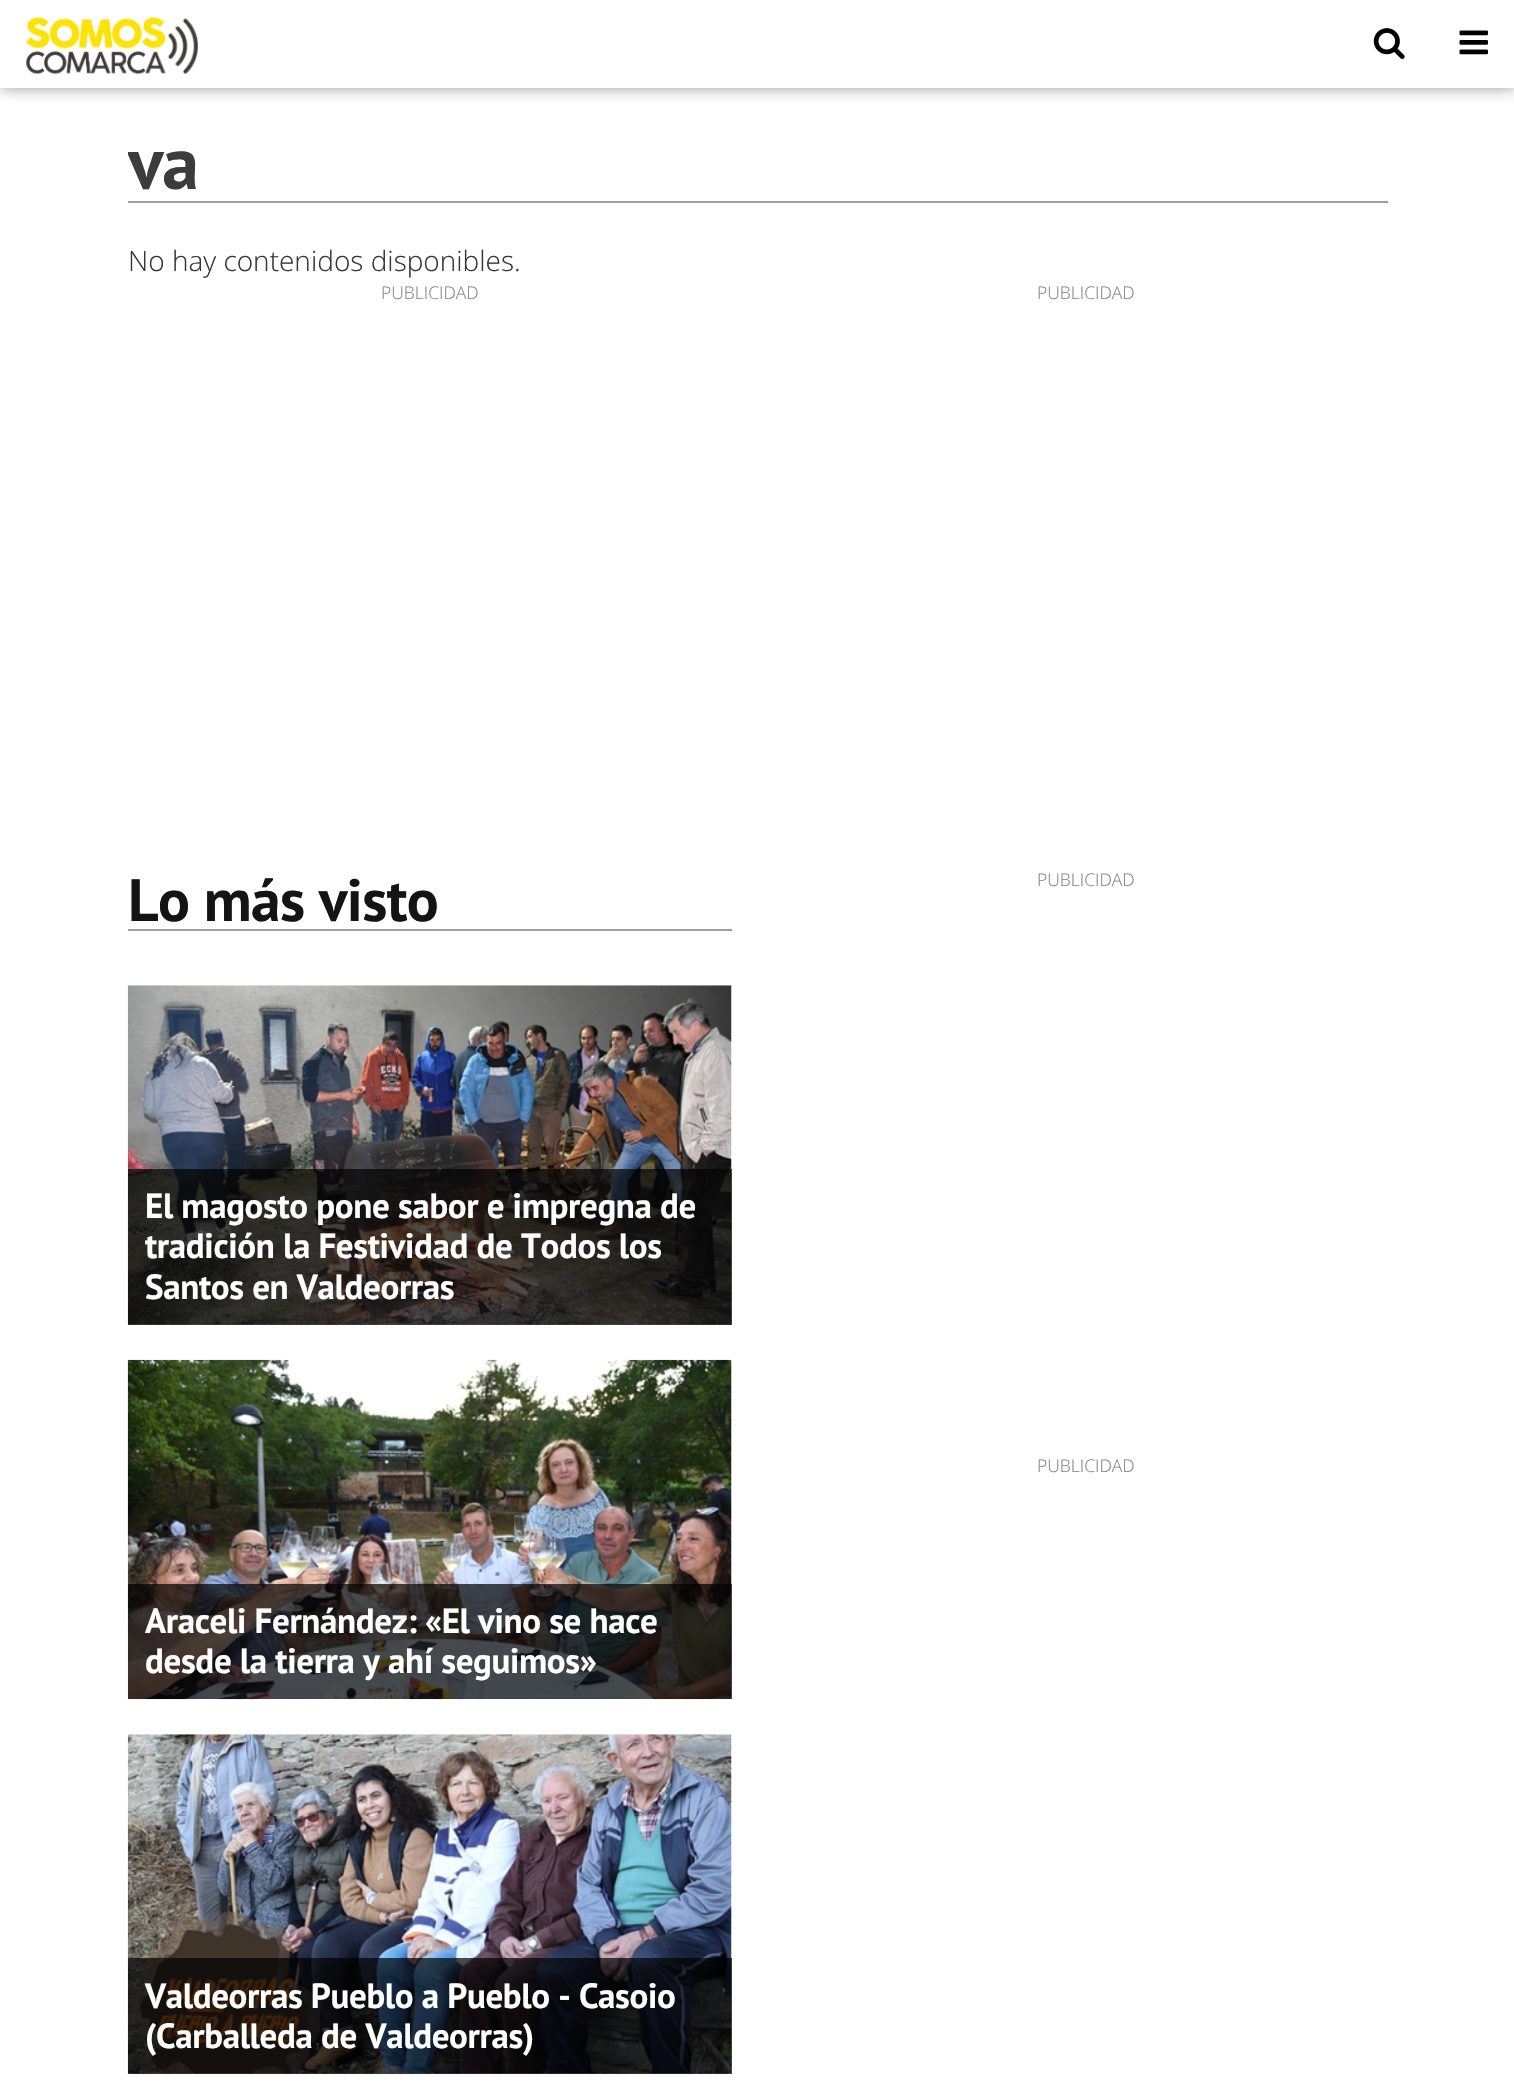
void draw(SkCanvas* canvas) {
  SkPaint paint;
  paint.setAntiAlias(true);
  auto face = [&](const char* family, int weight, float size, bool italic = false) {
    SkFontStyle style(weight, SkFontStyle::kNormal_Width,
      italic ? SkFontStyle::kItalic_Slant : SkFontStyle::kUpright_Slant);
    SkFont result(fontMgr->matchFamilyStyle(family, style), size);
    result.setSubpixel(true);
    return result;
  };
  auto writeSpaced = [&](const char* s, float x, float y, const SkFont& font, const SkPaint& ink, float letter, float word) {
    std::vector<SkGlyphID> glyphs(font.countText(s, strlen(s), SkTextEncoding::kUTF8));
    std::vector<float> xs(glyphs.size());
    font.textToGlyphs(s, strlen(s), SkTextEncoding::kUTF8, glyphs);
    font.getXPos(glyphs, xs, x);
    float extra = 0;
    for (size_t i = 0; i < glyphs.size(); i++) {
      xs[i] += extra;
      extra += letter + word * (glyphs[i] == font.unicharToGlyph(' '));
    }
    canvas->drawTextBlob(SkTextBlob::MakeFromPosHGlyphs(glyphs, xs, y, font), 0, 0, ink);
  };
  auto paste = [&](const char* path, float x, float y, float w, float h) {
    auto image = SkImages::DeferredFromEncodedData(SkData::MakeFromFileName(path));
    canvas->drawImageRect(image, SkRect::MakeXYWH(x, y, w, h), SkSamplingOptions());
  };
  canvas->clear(0xffffffff);
  paint.setColor(0x66000000);
  paint.setMaskFilter(SkMaskFilter::MakeBlur(kNormal_SkBlurStyle, 7));
  canvas->drawRect(SkRect::MakeXYWH(0, 0, 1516, 88), paint);
  paint.setMaskFilter(nullptr);
  paint.setColor(0xffffffff);
  canvas->drawRect(SkRect::MakeXYWH(0, 0, 1514, 88), paint);
  paste("img/1.png", 26, 16, 172, 58);
  paste("img/2.png", 1373, 28, 32, 31);
  paste("img/3.png", 1459, 30, 29, 25);
  paint.setColor(0xff9e9e9e);
  canvas->drawRect(SkRect::MakeXYWH(128, 201, 1260, 2), paint);
  canvas->drawRect(SkRect::MakeXYWH(128, 929, 604, 2), paint);
  paste("img/4.png", 127, 985, 605, 340);
  paint.setColor(0xb3000000);
  canvas->drawRect(SkRect::MakeXYWH(128, 1169, 604, 156), paint);
  paste("img/5.png", 127, 1359, 605, 341);
  canvas->drawRect(SkRect::MakeXYWH(128, 1584, 604, 115), paint);
  paste("img/6.png", 127, 1734, 605, 340);
  canvas->drawRect(SkRect::MakeXYWH(128, 1958, 604, 116), paint);
  canvas->save();
  canvas->clipRect(SkRect::MakeXYWH(128, 123, 1260, 84));
  auto f0 = face("PT Sans", 700, 74);
  paint.setColor(0xff3c3c3c);
  writeSpaced("va", 128, 189, f0, paint, -1, 0);
  canvas->restore();
  auto f1 = face("Open Sans", 300, 28);
  paint.setColor(0xff363636);
  canvas->drawString("No hay contenidos disponibles.", 128, 271, f1, paint);
  auto f2 = face("Open Sans", 300, 17.5f);
  paint.setColor(0xff838383);
  canvas->drawString("PUBLICIDAD", 381, 299, f2, paint);
  auto f3 = face("PT Sans", 700, 59.5f);
  paint.setColor(0xff141414);
  writeSpaced("Lo más visto", 128, 921, f3, paint, -0.6f, 0);
  auto f4 = face("PT Sans", 700, 35);
  paint.setColor(0xffffffff);
  {
    const struct { const char* s; float x, y; } items[] = {
      {"El magosto pone sabor e impregna de", 145, 1218},
      {"tradición la Festividad de Todos los", 145, 1258},
      {"Santos en Valdeorras", 145, 1299},
      {"Araceli Fernández: «El vino se hace", 145, 1633},
      {"desde la tierra y ahí seguimos»", 145, 1673},
      {"Valdeorras Pueblo a Pueblo - Casoio", 145, 2008},
      {"(Carballeda de Valdeorras)", 145, 2048},
    };
    for (auto [s, x, y] : items) {
      writeSpaced(s, x, y, f4, paint, -0.35f, 0);
    }
  }
  paint.setColor(0xff838383);
  {
    const struct { const char* s; float x, y; } items[] = {
      {"PUBLICIDAD", 1037, 299},
      {"PUBLICIDAD", 1037, 886},
      {"PUBLICIDAD", 1037, 1472},
    };
    for (auto [s, x, y] : items) {
      canvas->drawString(s, x, y, f2, paint);
    }
  }
}
